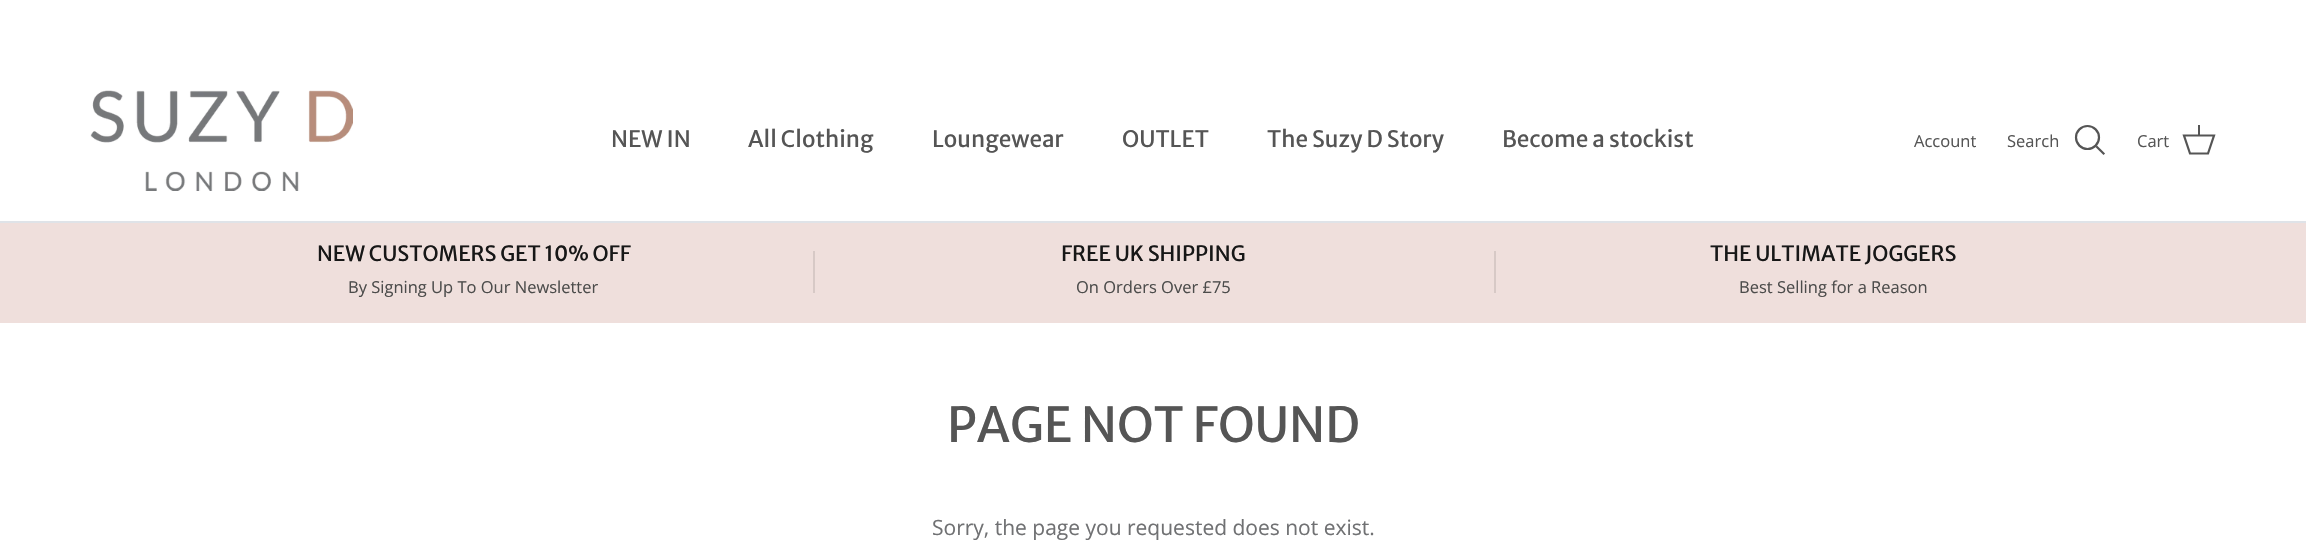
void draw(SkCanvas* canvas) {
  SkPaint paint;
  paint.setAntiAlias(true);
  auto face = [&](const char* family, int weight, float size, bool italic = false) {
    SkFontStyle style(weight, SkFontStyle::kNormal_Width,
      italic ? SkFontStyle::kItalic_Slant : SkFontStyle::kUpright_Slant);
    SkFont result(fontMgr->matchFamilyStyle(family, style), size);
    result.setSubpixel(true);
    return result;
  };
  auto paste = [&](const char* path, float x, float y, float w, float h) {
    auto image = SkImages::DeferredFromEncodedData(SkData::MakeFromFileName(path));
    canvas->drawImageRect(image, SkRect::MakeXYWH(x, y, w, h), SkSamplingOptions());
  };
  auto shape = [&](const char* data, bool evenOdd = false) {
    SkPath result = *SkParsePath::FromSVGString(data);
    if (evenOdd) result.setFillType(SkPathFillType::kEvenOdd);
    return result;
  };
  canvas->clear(0xffffffff);
  paint.setColor(0xffdfe3e8);
  canvas->drawRect(SkRect::MakeXYWH(0, 221, 2306, 2), paint);
  paste("img/1.png", 90, 90, 263, 101);
  paint.setStroke(true);
  paint.setStrokeWidth(2.2f);
  paint.setColor(0xff555555);
  canvas->drawCircle(2087.5f, 137.5f, 11.5f, paint);
  paint.setStrokeCap(SkPaint::kSquare_Cap);
  canvas->drawPath(shape("M2097 147L2103.5 153.5"), paint);
  paint.setStrokeCap(SkPaint::kButt_Cap);
  canvas->drawPath(shape("M2184 135.5H2214L2208 153.5H2190Z"), paint);
  paint.setStroke(false);
  {
    const struct { float x, y, w, h; SkColor color; } items[] = {
      {2198, 125, 2, 11, 0xff555555},
      {0, 223, 2306, 100, 0xffefdfdc},
      {813, 251, 2, 42, 0xffd7c9c6},
      {1494, 251, 2, 42, 0xffd7c9c6},
    };
    for (auto [x, y, w, h, color] : items) {
      paint.setColor(color);
      canvas->drawRect(SkRect::MakeXYWH(x, y, w, h), paint);
    }
  }
  auto f0 = face("Merriweather Sans", 400, 22.5f);
  paint.setColor(0xff555555);
  {
    const struct { const char* s; float x, y; } items[] = {
      {"NEW IN", 611, 147},
      {"All Clothing", 748, 147},
      {"Loungewear", 932, 147},
      {"OUTLET", 1122, 147},
      {"The Suzy D Story", 1267, 147},
      {"Become a stockist", 1502, 147},
    };
    for (auto [s, x, y] : items) {
      canvas->drawString(s, x, y, f0, paint);
    }
  }
  auto f1 = face("Open Sans", 400, 16.5f);
  {
    const struct { const char* s; float x, y; } items[] = {
      {"Account", 1914, 147},
      {"Search", 2007, 147},
      {"Cart", 2137, 147},
    };
    for (auto [s, x, y] : items) {
      canvas->drawString(s, x, y, f1, paint);
    }
  }
  auto f2 = face("Merriweather Sans", 400, 21);
  paint.setColor(0xff171717);
  canvas->drawString("NEW CUSTOMERS GET 10% OFF", 317, 261, f2, paint);
  paint.setColor(0xff4c4c4b);
  canvas->drawString("By Signing Up To Our Newsletter", 348, 293, f1, paint);
  paint.setColor(0xff171717);
  canvas->drawString("FREE UK SHIPPING", 1061, 261, f2, paint);
  paint.setColor(0xff4c4c4b);
  canvas->drawString("On Orders Over £75", 1076, 293, f1, paint);
  paint.setColor(0xff171717);
  canvas->drawString("THE ULTIMATE JOGGERS", 1710, 261, f2, paint);
  paint.setColor(0xff4c4c4b);
  canvas->drawString("Best Selling for a Reason", 1739, 293, f1, paint);
  auto f3 = face("Merriweather Sans", 400, 48);
  paint.setColor(0xff555555);
  canvas->drawString("PAGE NOT FOUND", 947, 442, f3, paint);
  auto f4 = face("Open Sans", 400, 21);
  paint.setColor(0xff707173);
  canvas->drawString("Sorry, the page you requested does not exist.", 932, 535, f4, paint);
}
